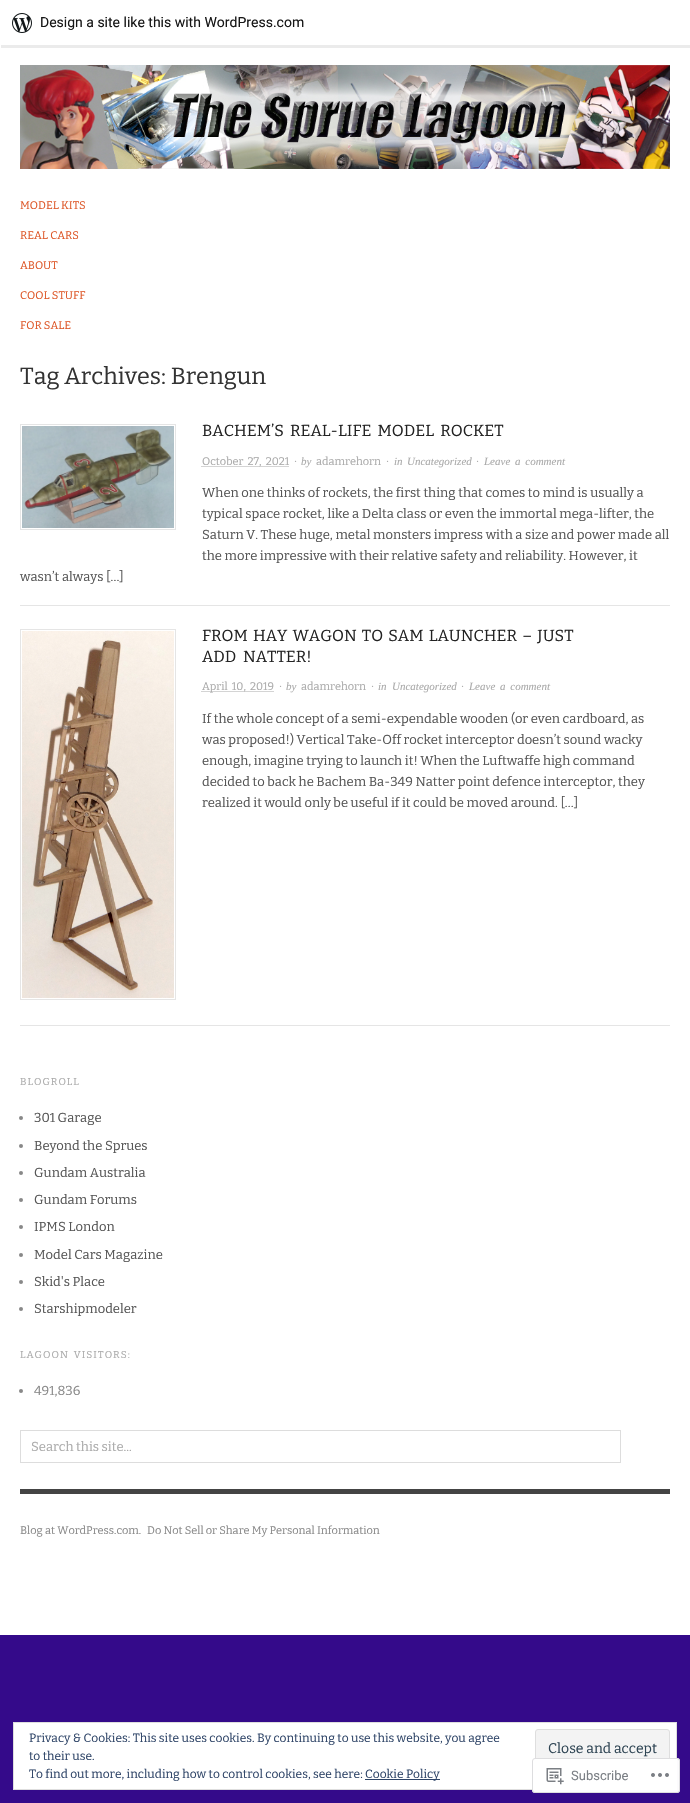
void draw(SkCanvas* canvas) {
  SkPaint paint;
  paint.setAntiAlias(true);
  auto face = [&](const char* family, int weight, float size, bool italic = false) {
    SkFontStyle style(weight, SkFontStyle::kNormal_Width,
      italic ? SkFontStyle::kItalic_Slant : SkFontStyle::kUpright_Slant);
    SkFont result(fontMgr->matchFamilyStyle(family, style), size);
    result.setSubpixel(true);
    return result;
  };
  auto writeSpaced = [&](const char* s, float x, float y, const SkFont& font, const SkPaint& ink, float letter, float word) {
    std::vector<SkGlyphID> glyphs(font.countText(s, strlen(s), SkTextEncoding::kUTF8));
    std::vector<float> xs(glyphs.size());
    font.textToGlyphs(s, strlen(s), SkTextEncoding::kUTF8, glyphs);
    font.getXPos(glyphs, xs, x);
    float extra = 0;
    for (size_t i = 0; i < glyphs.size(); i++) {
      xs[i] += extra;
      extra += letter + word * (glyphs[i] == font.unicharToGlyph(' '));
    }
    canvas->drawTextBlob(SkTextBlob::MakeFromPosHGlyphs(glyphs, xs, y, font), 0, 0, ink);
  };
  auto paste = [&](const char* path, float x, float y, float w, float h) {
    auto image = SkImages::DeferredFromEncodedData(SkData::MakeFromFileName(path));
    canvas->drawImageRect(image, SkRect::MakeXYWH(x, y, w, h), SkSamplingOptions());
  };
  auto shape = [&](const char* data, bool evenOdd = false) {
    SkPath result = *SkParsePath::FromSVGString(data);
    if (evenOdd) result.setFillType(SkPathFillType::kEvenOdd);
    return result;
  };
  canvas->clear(0xff340a8a);
  paint.setColor(0xffffffff);
  canvas->drawRect(SkRect::MakeXYWH(0, 0, 690, 1635), paint);
  paint.setColor(0x14000000);
  canvas->drawPath(shape("M1 45V48H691V3H690V45Z"), paint);
  paste("img/1.png", 12, 13, 20, 20);
  paste("img/2.png", 20, 65, 650, 104);
  paint.setColor(0xffe5e5e5);
  canvas->drawRect(SkRect::MakeXYWH(20, 605, 650, 1), paint);
  paint.setStroke(true);
  paint.setStrokeWidth(1);
  canvas->drawRect(SkRect::MakeXYWH(20.5f, 424.5f, 155, 105), paint);
  paste("img/3.png", 22, 426, 152, 102);
  paint.setColor(0xffaaaaaa);
  paint.setPathEffect(SkDashPathEffect::Make({{1, 1}}, 0));
  canvas->drawPath(shape("M201.5 466.5H289"), paint);
  paint.setPathEffect(nullptr);
  paint.setStroke(false);
  paint.setColor(0xffe5e5e5);
  canvas->drawRect(SkRect::MakeXYWH(20, 1025, 650, 1), paint);
  paint.setStroke(true);
  canvas->drawRect(SkRect::MakeXYWH(20.5f, 629.5f, 155, 370), paint);
  paste("img/4.png", 22, 631, 152, 367);
  paint.setColor(0xffaaaaaa);
  paint.setPathEffect(SkDashPathEffect::Make({{1, 1}}, 0));
  canvas->drawPath(shape("M201.5 691.5H274"), paint);
  paint.setPathEffect(nullptr);
  paint.setStroke(false);
  paint.setColor(0xff888888);
  canvas->drawCircle(21, 1118, 2, paint);
  canvas->drawCircle(21, 1146, 2, paint);
  canvas->drawCircle(21, 1173, 2, paint);
  canvas->drawCircle(21, 1200, 2, paint);
  canvas->drawCircle(21, 1227, 2, paint);
  canvas->drawCircle(21, 1255, 2, paint);
  canvas->drawCircle(21, 1282, 2, paint);
  canvas->drawCircle(21, 1309, 2, paint);
  canvas->drawCircle(21, 1391, 2, paint);
  paint.setStroke(true);
  paint.setColor(0xffdddddd);
  canvas->drawRect(SkRect::MakeXYWH(20.5f, 1430.5f, 600, 32), paint);
  paint.setStroke(false);
  paint.setColor(0xff444444);
  canvas->drawRect(SkRect::MakeXYWH(20, 1489, 650, 5), paint);
  paint.setColor(0xffffffff);
  canvas->drawRect(SkRect::MakeXYWH(13.5f, 1722.5f, 663, 67), paint);
  paint.setStroke(true);
  paint.setColor(0xffdedede);
  canvas->drawRect(SkRect::MakeXYWH(13.5f, 1722.5f, 663, 67), paint);
  paint.setStroke(false);
  paint.setColor(0xfff3f3f3);
  canvas->drawRoundRect(SkRect::MakeXYWH(535.5f, 1729.5f, 134, 38), 2.5f, 2.5f, paint);
  paint.setStroke(true);
  paint.setColor(0xffdedede);
  canvas->drawRoundRect(SkRect::MakeXYWH(535.5f, 1729.5f, 134, 38), 2.5f, 2.5f, paint);
  paint.setStroke(false);
  paint.setColor(0xff2e4467);
  canvas->drawRect(SkRect::MakeXYWH(365, 1779, 75, 1), paint);
  paint.setColor(0xfaffffff);
  canvas->drawRoundRect(SkRect::MakeXYWH(532, 1758, 148, 35), 3, 3, paint);
  paint.setStroke(true);
  paint.setColor(0xfadcdcde);
  canvas->drawRoundRect(SkRect::MakeXYWH(532.5f, 1758.5f, 147, 34), 2.5f, 2.5f, paint);
  paste("img/5.png", 546, 1768, 18, 17);
  paste("img/6.png", 651, 1773, 18, 4);
  auto f0 = face("Roboto", 400, 14);
  paint.setStroke(false);
  paint.setColor(0xff171717);
  canvas->drawString("Design a site like this with WordPress.com", 40, 27, f0, paint);
  auto f1 = face("Bitter", 100, 11);
  paint.setColor(0xffdd5424);
  {
    const struct { const char* s; float x, y; } items[] = {
      {"MODEL KITS", 20, 209},
      {"REAL CARS", 20, 239},
      {"ABOUT", 20, 269},
      {"COOL STUFF", 20, 299},
      {"FOR SALE", 20, 329},
    };
    for (auto [s, x, y] : items) {
      canvas->drawString(s, x, y, f1, paint);
    }
  }
  auto f2 = face("Bitter", 100, 23.4f);
  paint.setColor(0xff333333);
  canvas->drawString("Tag Archives: Brengun", 20, 384, f2, paint);
  auto f3 = face("Bitter", 100, 16);
  paint.setColor(0xff222222);
  writeSpaced("BACHEM’S REAL-LIFE MODEL ROCKET", 202, 436, f3, paint, 0, 3);
  paint.setColor(0xffaaaaaa);
  writeSpaced("October 27, 2021", 202, 465, f1, paint, 0, 2);
  auto f4 = face("Liberation Serif", 400, 11, true);
  canvas->drawString("·", 294, 465, f4, paint);
  canvas->drawString("by", 301, 465, f4, paint);
  canvas->drawString("adamrehorn", 316, 465, f1, paint);
  {
    const struct { const char* s; float x, y; } items[] = {
      {"·", 386, 465},
      {"in", 394, 465},
      {"Uncategorized", 407, 465},
      {"·", 476, 465},
    };
    for (auto [s, x, y] : items) {
      canvas->drawString(s, x, y, f4, paint);
    }
  }
  writeSpaced("Leave a comment", 484, 465, f4, paint, 0, 2);
  auto f5 = face("Bitter", 100, 13);
  paint.setColor(0xff555555);
  {
    const struct { const char* s; float x, y; } items[] = {
      {"When one thinks of rockets, the first thing that comes to mind is usually a", 202, 497},
      {"typical space rocket, like a Delta class or even the immortal mega-lifter, the", 202, 518},
      {"Saturn V. These huge, metal monsters impress with a size and power made all", 202, 539},
      {"the more impressive with their relative safety and reliability. However, it", 202, 560},
      {"wasn’t always […]", 20, 581},
    };
    for (auto [s, x, y] : items) {
      canvas->drawString(s, x, y, f5, paint);
    }
  }
  paint.setColor(0xff222222);
  writeSpaced("FROM HAY WAGON TO SAM LAUNCHER – JUST", 202, 641, f3, paint, 0, 2);
  canvas->drawString("ADD", 202, 662, f3, paint);
  canvas->drawString("NATTER!", 243, 662, f3, paint);
  paint.setColor(0xffaaaaaa);
  writeSpaced("April 10, 2019", 202, 690, f1, paint, 0, 2);
  canvas->drawString("·", 279, 690, f4, paint);
  canvas->drawString("by", 286, 690, f4, paint);
  canvas->drawString("adamrehorn", 301, 690, f1, paint);
  {
    const struct { const char* s; float x, y; } items[] = {
      {"·", 371, 690},
      {"in", 378, 690},
      {"Uncategorized", 392, 690},
      {"·", 461, 690},
    };
    for (auto [s, x, y] : items) {
      canvas->drawString(s, x, y, f4, paint);
    }
  }
  writeSpaced("Leave a comment", 469, 690, f4, paint, 0, 2);
  paint.setColor(0xff555555);
  {
    const struct { const char* s; float x, y; } items[] = {
      {"If the whole concept of a semi-expendable wooden (or even cardboard, as", 202, 723},
      {"was proposed!) Vertical Take-Off rocket interceptor doesn’t sound wacky", 202, 744},
      {"enough, imagine trying to launch it! When the Luftwaffe high command", 202, 765},
      {"decided to back he Bachem Ba-349 Natter point defence interceptor, they", 202, 786},
      {"realized it would only be useful if it could be moved around. […]", 202, 807},
    };
    for (auto [s, x, y] : items) {
      canvas->drawString(s, x, y, f5, paint);
    }
  }
  auto f6 = face("Bitter", 100, 10);
  paint.setColor(0xffaaaaaa);
  writeSpaced("BLOGROLL", 20, 1085, f6, paint, 1, 0);
  paint.setColor(0xff555555);
  {
    const struct { const char* s; float x, y; } items[] = {
      {"301 Garage", 34, 1122},
      {"Beyond the Sprues", 34, 1150},
      {"Gundam Australia", 34, 1177},
      {"Gundam Forums", 34, 1204},
      {"IPMS London", 34, 1231},
      {"Model Cars Magazine", 34, 1259},
      {"Skid's Place", 34, 1286},
      {"Starshipmodeler", 34, 1313},
    };
    for (auto [s, x, y] : items) {
      canvas->drawString(s, x, y, f5, paint);
    }
  }
  paint.setColor(0xffaaaaaa);
  writeSpaced("LAGOON VISITORS:", 20, 1358, f6, paint, 1, 2);
  paint.setColor(0xff888888);
  canvas->drawString("491,836", 34, 1395, f5, paint);
  paint.setColor(0xffaaaaaa);
  canvas->drawString("Search this site...", 31, 1451, f5, paint);
  paint.setColor(0xff888888);
  canvas->drawString("Blog at WordPress.com.", 20, 1534, f1, paint);
  canvas->drawString("Do Not Sell or Share My Personal Information", 147, 1534, f1, paint);
  auto f7 = face("Bitter", 100, 12);
  paint.setColor(0xff2e4467);
  canvas->drawString("Privacy & Cookies: This site uses cookies. By continuing to use this website, you agree", 29, 1742, f7, paint);
  canvas->drawString("to their use.", 29, 1760, f7, paint);
  auto f8 = face("Bitter", 100, 14);
  paint.setColor(0xff2e4453);
  canvas->drawString("Close and accept", 548, 1753, f8, paint);
  paint.setColor(0xff2e4467);
  canvas->drawString("To find out more, including how to control cookies, see here:", 29, 1778, f7, paint);
  canvas->drawString("Cookie Policy", 365, 1778, f7, paint);
  auto f9 = face("Roboto", 400, 13);
  paint.setColor(0xff7b7f85);
  canvas->drawString("Subscribe", 571, 1780, f9, paint);
}
